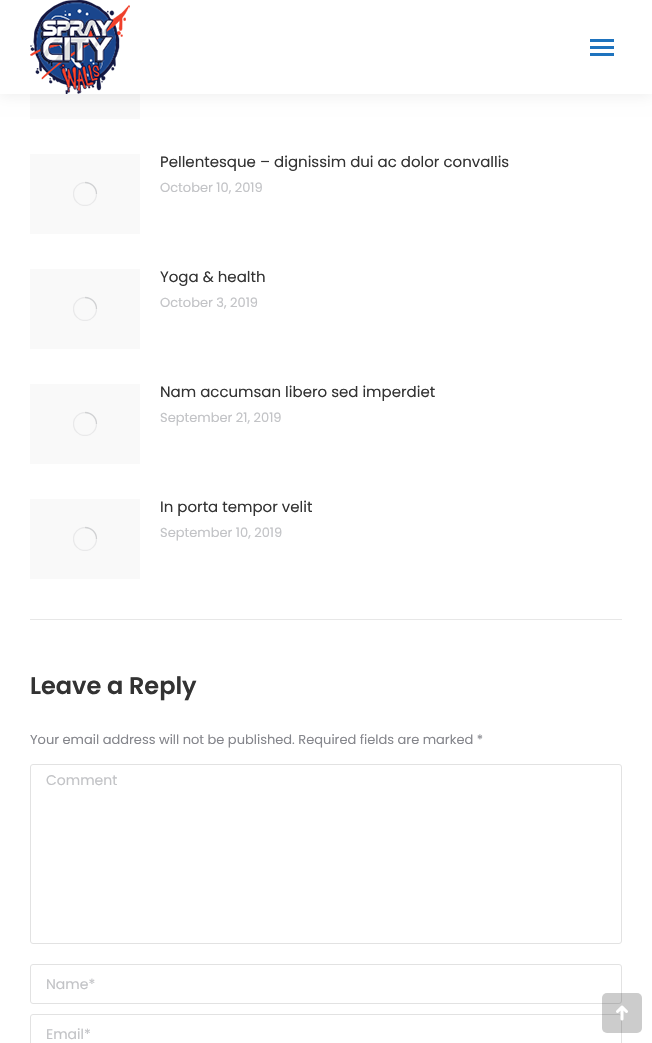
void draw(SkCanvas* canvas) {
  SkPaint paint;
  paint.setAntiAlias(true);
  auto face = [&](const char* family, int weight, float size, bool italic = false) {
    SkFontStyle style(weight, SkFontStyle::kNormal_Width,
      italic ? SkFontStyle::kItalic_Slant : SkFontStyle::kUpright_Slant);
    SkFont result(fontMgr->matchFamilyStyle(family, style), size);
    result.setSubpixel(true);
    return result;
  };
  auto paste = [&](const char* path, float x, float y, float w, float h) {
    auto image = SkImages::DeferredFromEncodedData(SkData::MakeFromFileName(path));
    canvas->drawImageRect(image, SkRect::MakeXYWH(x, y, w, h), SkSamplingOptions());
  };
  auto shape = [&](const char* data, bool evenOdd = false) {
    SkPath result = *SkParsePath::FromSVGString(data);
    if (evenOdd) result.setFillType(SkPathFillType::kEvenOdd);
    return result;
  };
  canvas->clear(0xffffffff);
  paint.setColor(0xfff9f9f9);
  canvas->drawRect(SkRect::MakeXYWH(30, 94, 110, 25), paint);
  paint.setColor(0x12000000);
  paint.setMaskFilter(SkMaskFilter::MakeBlur(kNormal_SkBlurStyle, 7.5f));
  canvas->drawRect(SkRect::MakeXYWH(-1, -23, 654, 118), paint);
  paint.setMaskFilter(nullptr);
  paint.setColor(0xffffffff);
  canvas->drawRect(SkRect::MakeXYWH(0, 0, 652, 94), paint);
  paste("img/1.png", 30, 0, 100, 94);
  {
    const struct { float x, y, w, h; SkColor color; } items[] = {
      {590, 39, 24, 3, 0xff1e73be},
      {590, 46, 24, 3, 0xff1e73be},
      {590, 53, 24, 3, 0xff1e73be},
      {30, 619, 592, 1, 0xffe7e7e7},
      {30, 154, 110, 80, 0xfff9f9f9},
    };
    for (auto [x, y, w, h, color] : items) {
      paint.setColor(color);
      canvas->drawRect(SkRect::MakeXYWH(x, y, w, h), paint);
    }
  }
  canvas->save();
  canvas->clipRect(SkRect::MakeXYWH(73, 182, 24, 24));
  paint.setStroke(true);
  paint.setStrokeWidth(1.3f);
  paint.setColor(0xffe9e9ea);
  canvas->drawCircle(85, 194, 11.5f, paint);
  canvas->restore();
  paint.setColor(0x4085868c);
  canvas->drawPath(shape("M96.5 194C96.5 187.5 91.5 182.5 85 182.5"), paint);
  paint.setStroke(false);
  paint.setColor(0xfff9f9f9);
  canvas->drawRect(SkRect::MakeXYWH(30, 269, 110, 80), paint);
  canvas->save();
  canvas->clipRect(SkRect::MakeXYWH(73, 297, 24, 24));
  paint.setStroke(true);
  paint.setColor(0xffe9e9ea);
  canvas->drawCircle(85, 309, 11.5f, paint);
  canvas->restore();
  paint.setColor(0x4085868c);
  canvas->drawPath(shape("M96.5 309C96.5 302.5 91.5 297.5 85 297.5"), paint);
  paint.setStroke(false);
  paint.setColor(0xfff9f9f9);
  canvas->drawRect(SkRect::MakeXYWH(30, 384, 110, 80), paint);
  canvas->save();
  canvas->clipRect(SkRect::MakeXYWH(73, 412, 24, 24));
  paint.setStroke(true);
  paint.setColor(0xffe9e9ea);
  canvas->drawCircle(85, 424, 11.5f, paint);
  canvas->restore();
  paint.setColor(0x4085868c);
  canvas->drawPath(shape("M96.5 424C96.5 417.5 91.5 412.5 85 412.5"), paint);
  paint.setStroke(false);
  paint.setColor(0xfff9f9f9);
  canvas->drawRect(SkRect::MakeXYWH(30, 499, 110, 80), paint);
  canvas->save();
  canvas->clipRect(SkRect::MakeXYWH(73, 527, 24, 24));
  paint.setStroke(true);
  paint.setColor(0xffe9e9ea);
  canvas->drawCircle(85, 539, 11.5f, paint);
  canvas->restore();
  paint.setColor(0x4085868c);
  canvas->drawPath(shape("M96.5 539C96.5 532.5 91.5 527.5 85 527.5"), paint);
  paint.setStrokeWidth(1);
  paint.setColor(0xffe2e2e2);
  canvas->drawRoundRect(SkRect::MakeXYWH(30.5f, 764.5f, 591, 179), 2.5f, 2.5f, paint);
  canvas->drawRoundRect(SkRect::MakeXYWH(30.5f, 964.5f, 591, 39), 2.5f, 2.5f, paint);
  canvas->drawRoundRect(SkRect::MakeXYWH(30.5f, 1014.5f, 591, 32), 2.5f, 2.5f, paint);
  paint.setStroke(false);
  paint.setColor(0x33000000);
  canvas->drawRoundRect(SkRect::MakeXYWH(602, 993, 40, 40), 5, 5, paint);
  paste("img/2.png", 616, 1005, 12, 16);
  auto f0 = face("Poppins", 400, 15);
  paint.setColor(0xff333333);
  canvas->drawString("Pellentesque – dignissim dui ac dolor convallis", 160, 167, f0, paint);
  auto f1 = face("Poppins", 400, 13);
  paint.setColor(0xffc2c3c6);
  canvas->drawString("October 10, 2019", 160, 192, f1, paint);
  paint.setColor(0xff333333);
  canvas->drawString("Yoga & health", 160, 282, f0, paint);
  paint.setColor(0xffc2c3c6);
  canvas->drawString("October 3, 2019", 160, 307, f1, paint);
  paint.setColor(0xff333333);
  canvas->drawString("Nam accumsan libero sed imperdiet", 160, 397, f0, paint);
  paint.setColor(0xffc2c3c6);
  canvas->drawString("September 21, 2019", 160, 422, f1, paint);
  paint.setColor(0xff333333);
  canvas->drawString("In porta tempor velit", 160, 512, f0, paint);
  paint.setColor(0xffc2c3c6);
  canvas->drawString("September 10, 2019", 160, 537, f1, paint);
  auto f2 = face("Poppins", 600, 24);
  paint.setColor(0xff333333);
  canvas->drawString("Leave a Reply", 30, 694, f2, paint);
  paint.setColor(0xff85868c);
  canvas->drawString("Your email address will not be published. Required fields are marked *", 30, 744, f1, paint);
  auto f3 = face("Poppins", 400, 14);
  paint.setColor(0xffc2c3c6);
  {
    const struct { const char* s; float x, y; } items[] = {
      {"Comment", 46, 785},
      {"Name*", 46, 989},
      {"Email*", 46, 1039},
    };
    for (auto [s, x, y] : items) {
      canvas->drawString(s, x, y, f3, paint);
    }
  }
}
